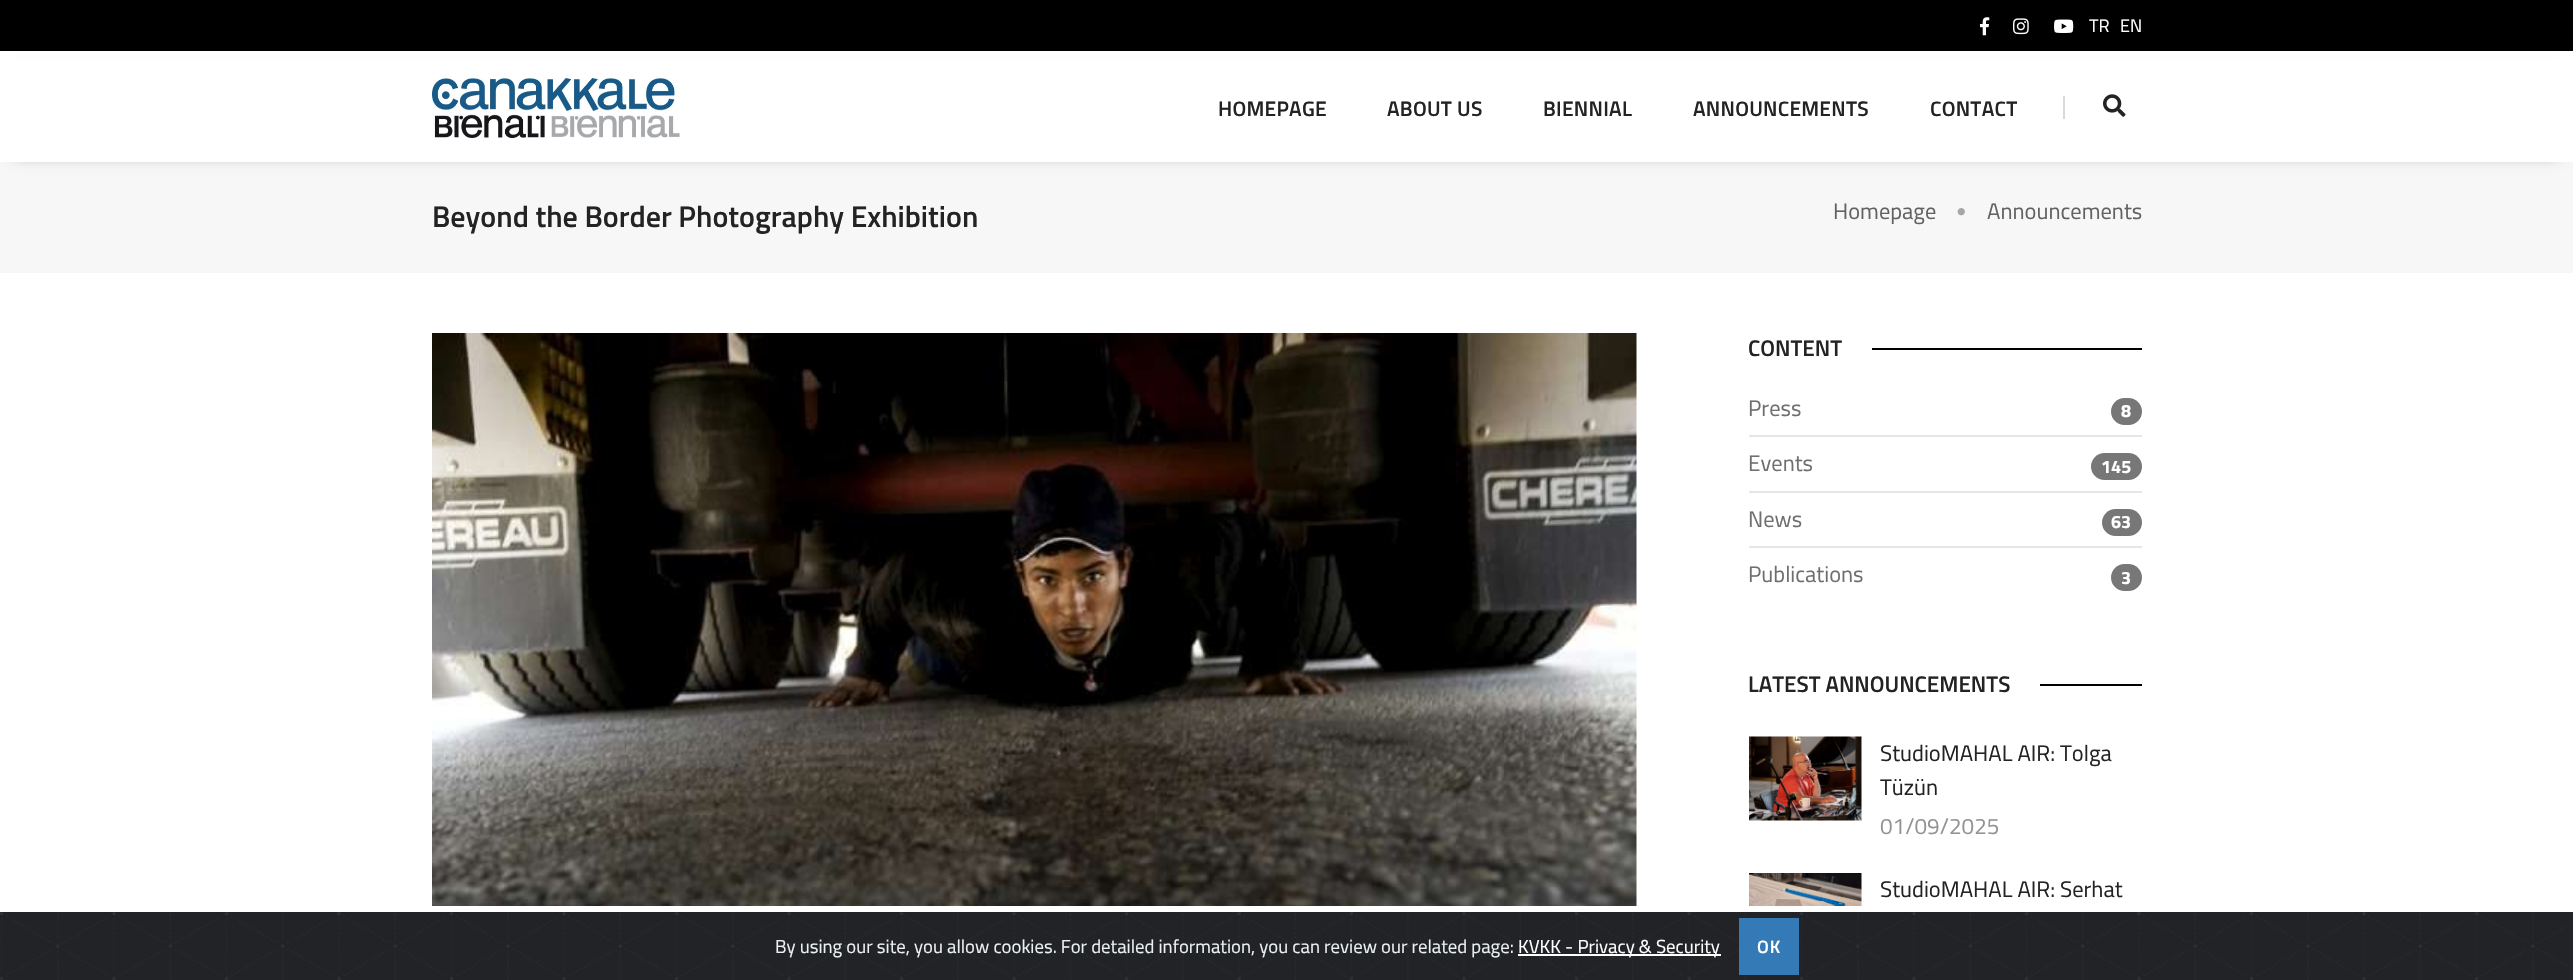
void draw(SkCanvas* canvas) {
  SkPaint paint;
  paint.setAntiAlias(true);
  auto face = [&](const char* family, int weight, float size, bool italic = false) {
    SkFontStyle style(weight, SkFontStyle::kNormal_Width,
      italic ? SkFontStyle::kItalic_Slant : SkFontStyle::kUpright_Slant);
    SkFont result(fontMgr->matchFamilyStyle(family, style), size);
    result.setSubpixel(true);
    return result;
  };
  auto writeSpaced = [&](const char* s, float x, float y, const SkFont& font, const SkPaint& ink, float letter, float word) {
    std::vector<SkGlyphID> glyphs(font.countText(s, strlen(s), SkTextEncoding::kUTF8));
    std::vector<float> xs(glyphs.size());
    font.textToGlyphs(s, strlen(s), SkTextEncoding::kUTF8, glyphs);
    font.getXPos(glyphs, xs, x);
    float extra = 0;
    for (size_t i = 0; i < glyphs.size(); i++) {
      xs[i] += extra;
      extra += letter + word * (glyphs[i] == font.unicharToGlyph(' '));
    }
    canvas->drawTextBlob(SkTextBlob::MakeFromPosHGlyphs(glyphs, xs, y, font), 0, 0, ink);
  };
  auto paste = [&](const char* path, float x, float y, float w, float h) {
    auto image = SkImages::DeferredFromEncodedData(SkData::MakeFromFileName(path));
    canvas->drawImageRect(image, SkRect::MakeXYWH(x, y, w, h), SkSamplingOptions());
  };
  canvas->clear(0xffffffff);
  paint.setColor(0xff000000);
  canvas->drawRect(SkRect::MakeXYWH(0, 0, 2573, 51), paint);
  paste("img/1.png", 1980, 17, 10, 19);
  paste("img/2.png", 2013, 18, 16, 17);
  paste("img/3.png", 2054, 19, 20, 14);
  paint.setColor(0xfff7f7f7);
  canvas->drawRect(SkRect::MakeXYWH(0, 162, 2573, 111), paint);
  paint.setColor(0x99000000);
  paint.setMaskFilter(SkMaskFilter::MakeBlur(kNormal_SkBlurStyle, 7.5f));
  canvas->drawRect(SkRect::MakeXYWH(15, 75, 2544, 78), paint);
  paint.setMaskFilter(nullptr);
  paint.setColor(0xffffffff);
  canvas->drawRect(SkRect::MakeXYWH(0, 59, 2573, 103), paint);
  paste("img/4.png", 432, 78, 248, 60);
  paint.setColor(0xffd9d9d9);
  canvas->drawRect(SkRect::MakeXYWH(2063, 96, 2, 23), paint);
  paste("img/5.png", 2103, 94, 23, 23);
  paste("img/6.png", 1957, 208, 8, 8);
  paste("img/7.png", 432, 333, 1205, 573);
  paint.setColor(0xff000000);
  canvas->drawRect(SkRect::MakeXYWH(1872, 348, 270, 2), paint);
  paint.setColor(0xffe6e6e6);
  canvas->drawRect(SkRect::MakeXYWH(1749, 435, 393, 2), paint);
  paint.setColor(0xff777777);
  canvas->drawRoundRect(SkRect::MakeXYWH(2111, 398, 31, 27), 13.5f, 13.5f, paint);
  paint.setColor(0xffe6e6e6);
  canvas->drawRect(SkRect::MakeXYWH(1749, 491, 393, 2), paint);
  paint.setColor(0xff777777);
  canvas->drawRoundRect(SkRect::MakeXYWH(2091, 453, 51, 27), 13.5f, 13.5f, paint);
  paint.setColor(0xffe6e6e6);
  canvas->drawRect(SkRect::MakeXYWH(1749, 546, 393, 2), paint);
  paint.setColor(0xff777777);
  canvas->drawRoundRect(SkRect::MakeXYWH(2102, 509, 40, 27), 13.5f, 13.5f, paint);
  canvas->drawRoundRect(SkRect::MakeXYWH(2111, 564, 31, 27), 13.5f, 13.5f, paint);
  paint.setColor(0xff000000);
  canvas->drawRect(SkRect::MakeXYWH(2040, 684, 102, 2), paint);
  paste("img/8.png", 1749, 736, 113, 85);
  paste("img/9.png", 1749, 873, 113, 33);
  paint.setColor(0xff212327);
  canvas->drawRect(SkRect::MakeXYWH(2569, 912, 4, 68), paint);
  paste("img/10.png", 0, 912, 2569, 68);
  paint.setColor(0xffffffff);
  canvas->drawRect(SkRect::MakeXYWH(1518, 954, 203, 2), paint);
  paint.setColor(0xff337ab7);
  canvas->drawRect(SkRect::MakeXYWH(1739, 918, 60, 57), paint);
  auto f0 = face("Titillium Web", 400, 18);
  paint.setColor(0xffffffff);
  canvas->drawString("TR", 2089, 32, f0, paint);
  canvas->drawString("EN", 2120, 32, f0, paint);
  auto f1 = face("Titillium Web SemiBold", 600, 21);
  paint.setColor(0xff232323);
  {
    const struct { const char* s; float x, y; } items[] = {
      {"HOMEPAGE", 1218, 116},
      {"ABOUT US", 1387, 116},
      {"BIENNIAL", 1543, 116},
      {"ANNOUNCEMENTS", 1693, 116},
      {"CONTACT", 1930, 116},
    };
    for (auto [s, x, y] : items) {
      writeSpaced(s, x, y, f1, paint, 0.25f, 0);
    }
  }
  auto f2 = face("Titillium Web SemiBold", 600, 30);
  canvas->drawString("Beyond the Border Photography Exhibition", 432, 227, f2, paint);
  auto f3 = face("Titillium Web", 400, 22.5f);
  paint.setColor(0xff626262);
  canvas->drawString("Homepage", 1833, 219, f3, paint);
  canvas->drawString("Announcements", 1987, 219, f3, paint);
  auto f4 = face("Titillium Web SemiBold", 600, 22.5f);
  paint.setColor(0xff232323);
  canvas->drawString("CONTENT", 1748, 356, f4, paint);
  paint.setColor(0xff6f6f6f);
  canvas->drawString("Press", 1748, 416, f3, paint);
  auto f5 = face("Titillium Web", 700, 18);
  paint.setColor(0xffffffff);
  canvas->drawString("8", 2121, 417, f5, paint);
  paint.setColor(0xff6f6f6f);
  canvas->drawString("Events", 1748, 471, f3, paint);
  paint.setColor(0xffffffff);
  canvas->drawString("145", 2101, 473, f5, paint);
  paint.setColor(0xff6f6f6f);
  canvas->drawString("News", 1748, 527, f3, paint);
  paint.setColor(0xffffffff);
  canvas->drawString("63", 2111, 528, f5, paint);
  paint.setColor(0xff6f6f6f);
  canvas->drawString("Publications", 1748, 582, f3, paint);
  paint.setColor(0xffffffff);
  canvas->drawString("3", 2121, 584, f5, paint);
  paint.setColor(0xff232323);
  canvas->drawString("LATEST ANNOUNCEMENTS", 1748, 692, f4, paint);
  canvas->drawString("StudioMAHAL AIR: Tolga", 1880, 761, f3, paint);
  canvas->drawString("Tüzün", 1880, 795, f3, paint);
  paint.setColor(0xff939393);
  canvas->drawString("01/09/2025", 1880, 834, f3, paint);
  paint.setColor(0xff232323);
  canvas->drawString("StudioMAHAL AIR: Serhat", 1880, 897, f3, paint);
  auto f6 = face("Titillium Web", 400, 18.75f);
  paint.setColor(0xffecf0f1);
  canvas->drawString("By using our site, you allow cookies. For detailed information, you can review our related page:", 775, 953, f6, paint);
  paint.setColor(0xffffffff);
  canvas->drawString("KVKK - Privacy & Security", 1518, 953, f6, paint);
  auto f7 = face("Titillium Web SemiBold", 600, 18);
  writeSpaced("OK", 1757, 953, f7, paint, 1, 0);
}
